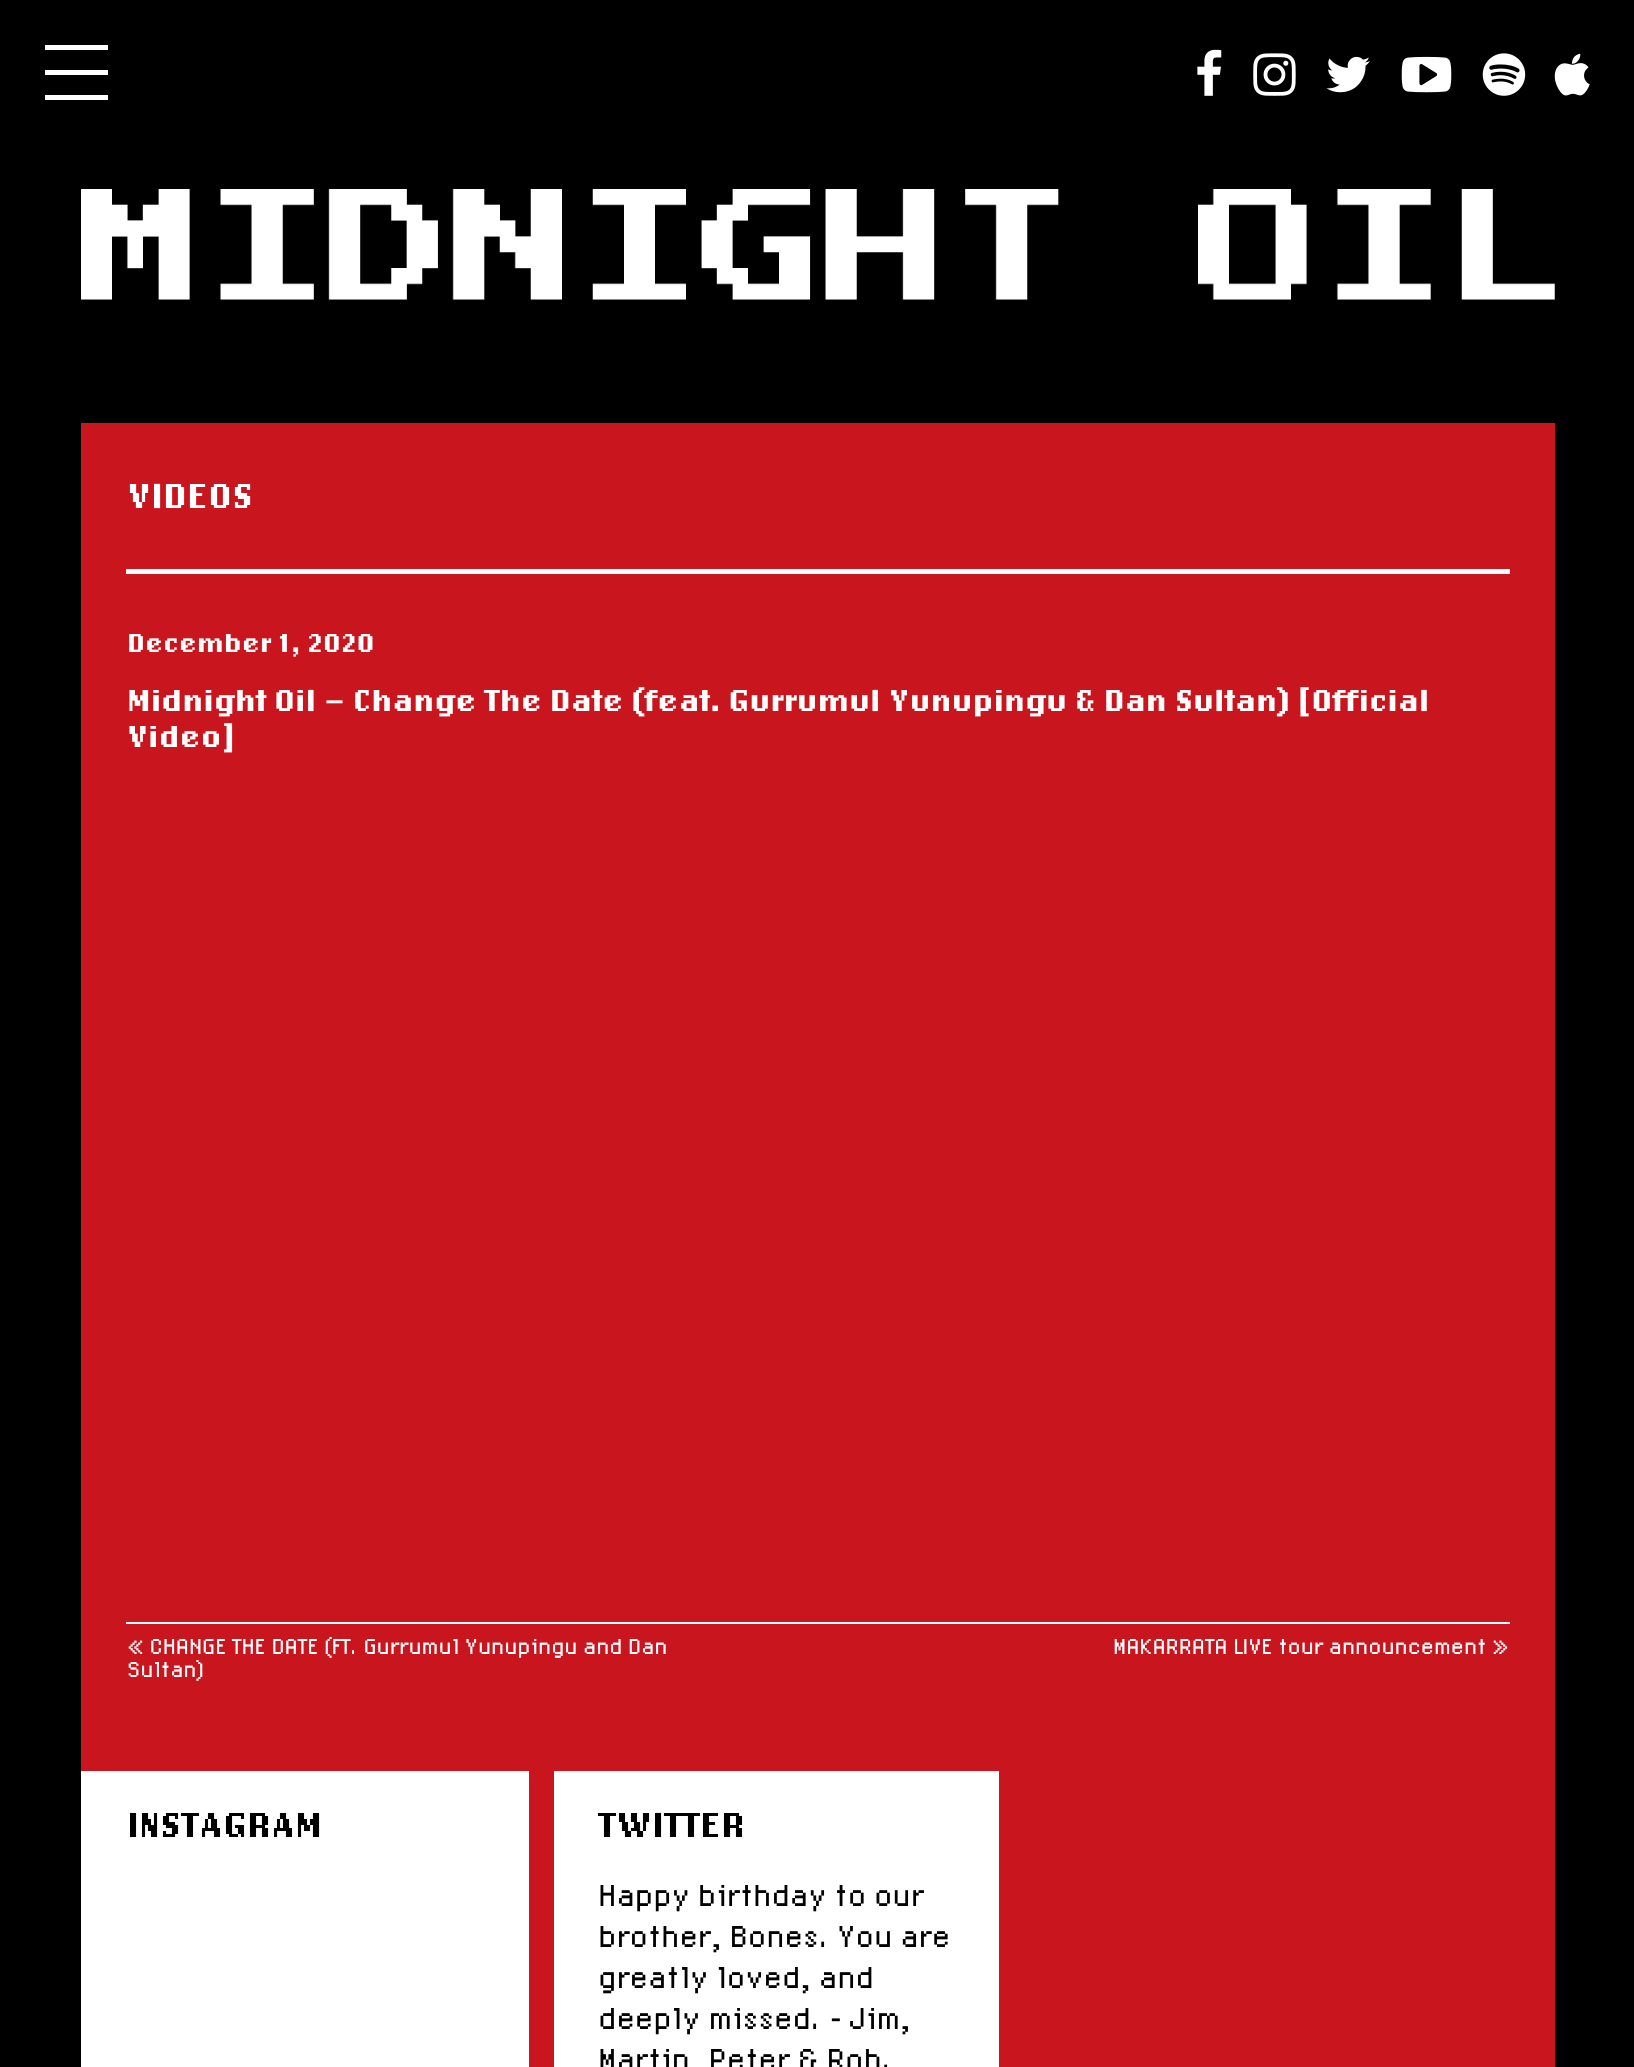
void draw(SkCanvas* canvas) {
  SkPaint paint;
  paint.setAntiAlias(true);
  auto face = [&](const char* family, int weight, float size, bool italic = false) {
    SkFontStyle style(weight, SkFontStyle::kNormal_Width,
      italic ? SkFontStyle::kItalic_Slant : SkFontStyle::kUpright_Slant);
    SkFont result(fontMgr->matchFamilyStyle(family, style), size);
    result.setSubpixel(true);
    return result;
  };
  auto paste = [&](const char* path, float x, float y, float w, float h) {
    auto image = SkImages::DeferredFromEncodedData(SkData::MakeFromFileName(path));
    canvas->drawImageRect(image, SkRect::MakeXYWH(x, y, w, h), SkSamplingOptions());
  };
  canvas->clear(0xff000000);
  {
    const struct { float x, y, w, h; SkColor color; } items[] = {
      {45, 45, 63, 5, 0xffffffff},
      {45, 70, 63, 5, 0xffffffff},
      {45, 95, 63, 5, 0xffffffff},
    };
    for (auto [x, y, w, h, color] : items) {
      paint.setColor(color);
      canvas->drawRect(SkRect::MakeXYWH(x, y, w, h), paint);
    }
  }
  paste("img/1.png", 1197, 49, 25, 47);
  paste("img/2.png", 1253, 53, 43, 43);
  paste("img/3.png", 1326, 56, 44, 37);
  paste("img/4.png", 1401, 56, 51, 37);
  paste("img/5.png", 1482, 53, 44, 43);
  paste("img/6.png", 1554, 53, 36, 43);
  paste("img/7.png", 81, 189, 1474, 111);
  {
    const struct { float x, y, w, h; SkColor color; } items[] = {
      {81, 423, 1474, 1644, 0xffc9151e},
      {126, 569, 1384, 5, 0xffffffff},
      {126, 1622, 1384, 2, 0xffffffff},
      {81, 1771, 448, 296, 0xffffffff},
      {554, 1771, 445, 296, 0xffffffff},
    };
    for (auto [x, y, w, h, color] : items) {
      paint.setColor(color);
      canvas->drawRect(SkRect::MakeXYWH(x, y, w, h), paint);
    }
  }
  auto f0 = face("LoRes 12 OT", 700, 36);
  canvas->drawString("VIDEOS", 127, 508, f0, paint);
  auto f1 = face("LoRes 12 OT", 700, 27);
  canvas->drawString("December 1, 2020", 127, 652, f1, paint);
  auto f2 = face("LoRes 12 OT", 700, 31.5f);
  canvas->drawString("Midnight Oil – Change The Date (feat. Gurrumul Yunupingu & Dan Sultan) [Official", 127, 711, f2, paint);
  canvas->drawString("Video]", 127, 747, f2, paint);
  auto f3 = face("LoRes 12 OT", 400, 22.5f);
  {
    const struct { const char* s; float x, y; } items[] = {
      {"« CHANGE THE DATE (FT. Gurrumul Yunupingu and Dan", 127, 1654},
      {"Sultan)", 127, 1677},
      {"MAKARRATA LIVE tour announcement »", 1113, 1654},
    };
    for (auto [s, x, y] : items) {
      canvas->drawString(s, x, y, f3, paint);
    }
  }
  paint.setColor(0xff000000);
  canvas->drawString("INSTAGRAM", 127, 1837, f0, paint);
  canvas->drawString("TWITTER", 598, 1837, f0, paint);
  auto f4 = face("LoRes 12 OT", 400, 31.5f);
  {
    const struct { const char* s; float x, y; } items[] = {
      {"Happy birthday to our", 598, 1906},
      {"brother, Bones. You are", 598, 1947},
      {"greatly loved, and", 598, 1988},
      {"deeply missed. - Jim,", 598, 2029},
      {"Martin, Peter & Rob.", 598, 2070},
    };
    for (auto [s, x, y] : items) {
      canvas->drawString(s, x, y, f4, paint);
    }
  }
}
